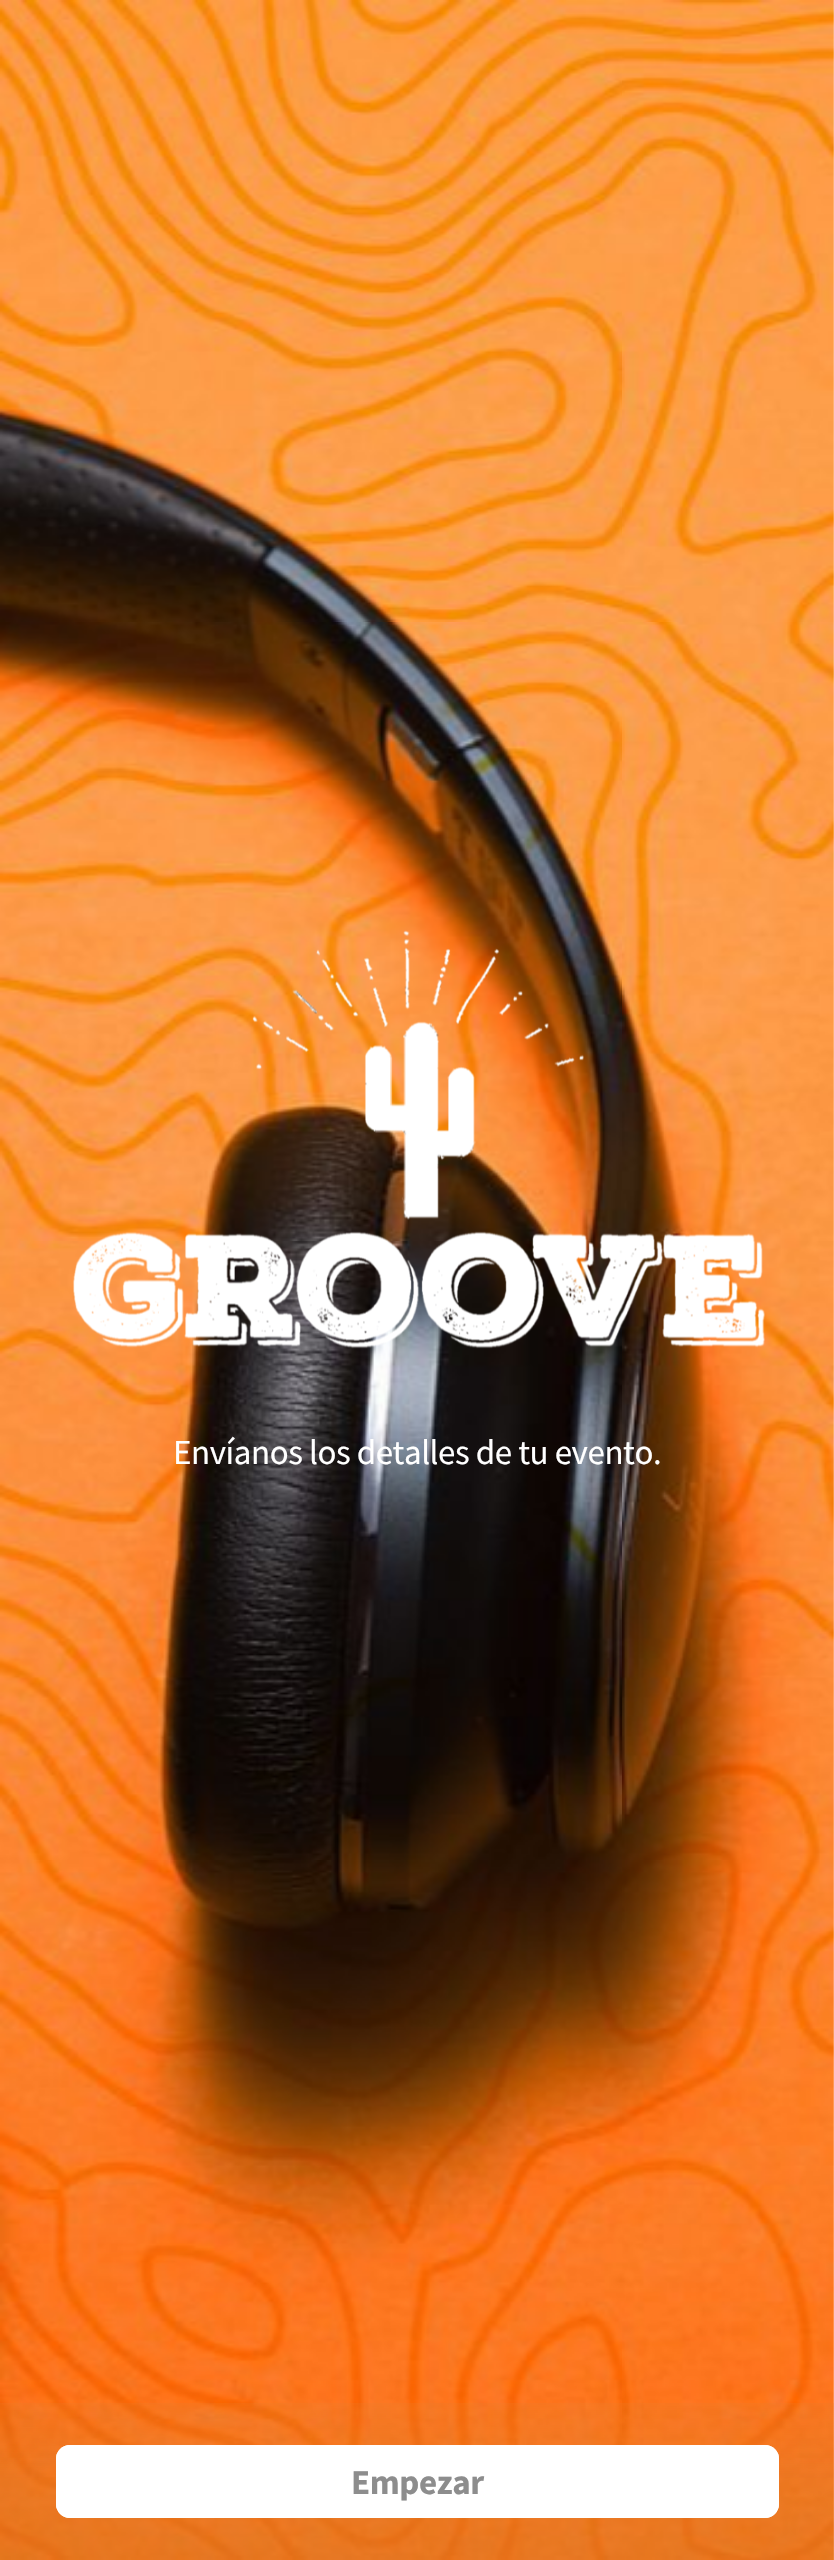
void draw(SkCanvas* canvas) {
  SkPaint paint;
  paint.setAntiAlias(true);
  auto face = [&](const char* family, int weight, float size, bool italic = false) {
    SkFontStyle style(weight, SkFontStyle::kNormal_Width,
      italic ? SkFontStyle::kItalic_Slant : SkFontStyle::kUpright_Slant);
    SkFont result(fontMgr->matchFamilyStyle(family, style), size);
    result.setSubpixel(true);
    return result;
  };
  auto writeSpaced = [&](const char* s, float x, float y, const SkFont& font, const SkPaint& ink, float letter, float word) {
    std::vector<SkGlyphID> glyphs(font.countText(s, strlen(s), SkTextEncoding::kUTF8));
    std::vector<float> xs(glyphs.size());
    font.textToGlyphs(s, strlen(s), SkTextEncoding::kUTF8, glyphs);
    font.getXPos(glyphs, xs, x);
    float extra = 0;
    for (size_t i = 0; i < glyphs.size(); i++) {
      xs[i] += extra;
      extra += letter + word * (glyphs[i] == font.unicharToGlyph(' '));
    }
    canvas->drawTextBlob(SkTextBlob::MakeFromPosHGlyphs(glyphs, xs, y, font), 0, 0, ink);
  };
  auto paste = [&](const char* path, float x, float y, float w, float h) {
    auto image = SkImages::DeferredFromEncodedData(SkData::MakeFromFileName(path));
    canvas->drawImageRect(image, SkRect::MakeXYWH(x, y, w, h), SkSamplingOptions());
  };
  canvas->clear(0xffffffff);
  paste("img/1.png", 0, 0, 834, 2560);
  paste("img/2.png", 73, 930, 692, 419);
  {
    const SkColor colors[] = {0x80e57f2c, 0x80e57f2c, 0x33e57f2c};
    const float stops[] = {0, 0.6f, 1};
    const SkPoint ends[] = {{417, 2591}, {417, 2403}};
    paint.setShader(SkGradientShader::MakeLinear(ends, colors, stops, 3, SkTileMode::kClamp));
    paint.setAlpha(255);
  }
  canvas->drawRect(SkRect::MakeXYWH(0, 2403, 834, 157), paint);
  paint.setStroke(true);
  paint.setStrokeWidth(2);
  paint.setShader(nullptr);
  paint.setColor(0xffffffff);
  canvas->drawRoundRect(SkRect::MakeXYWH(57, 2446, 721, 71), 13, 13, paint);
  paint.setStroke(false);
  canvas->drawRoundRect(SkRect::MakeXYWH(56, 2445, 723, 73), 14, 14, paint);
  auto f0 = face("Source Sans Pro", 400, 35);
  writeSpaced("Envíanos los detalles de tu evento.", 173, 1464, f0, paint, -0.45f, 0);
  auto f1 = face("Source Sans Pro", 700, 35);
  paint.setColor(0xff8d8d8d);
  writeSpaced("Empezar", 351, 2494, f1, paint, -0.45f, 0);
}
